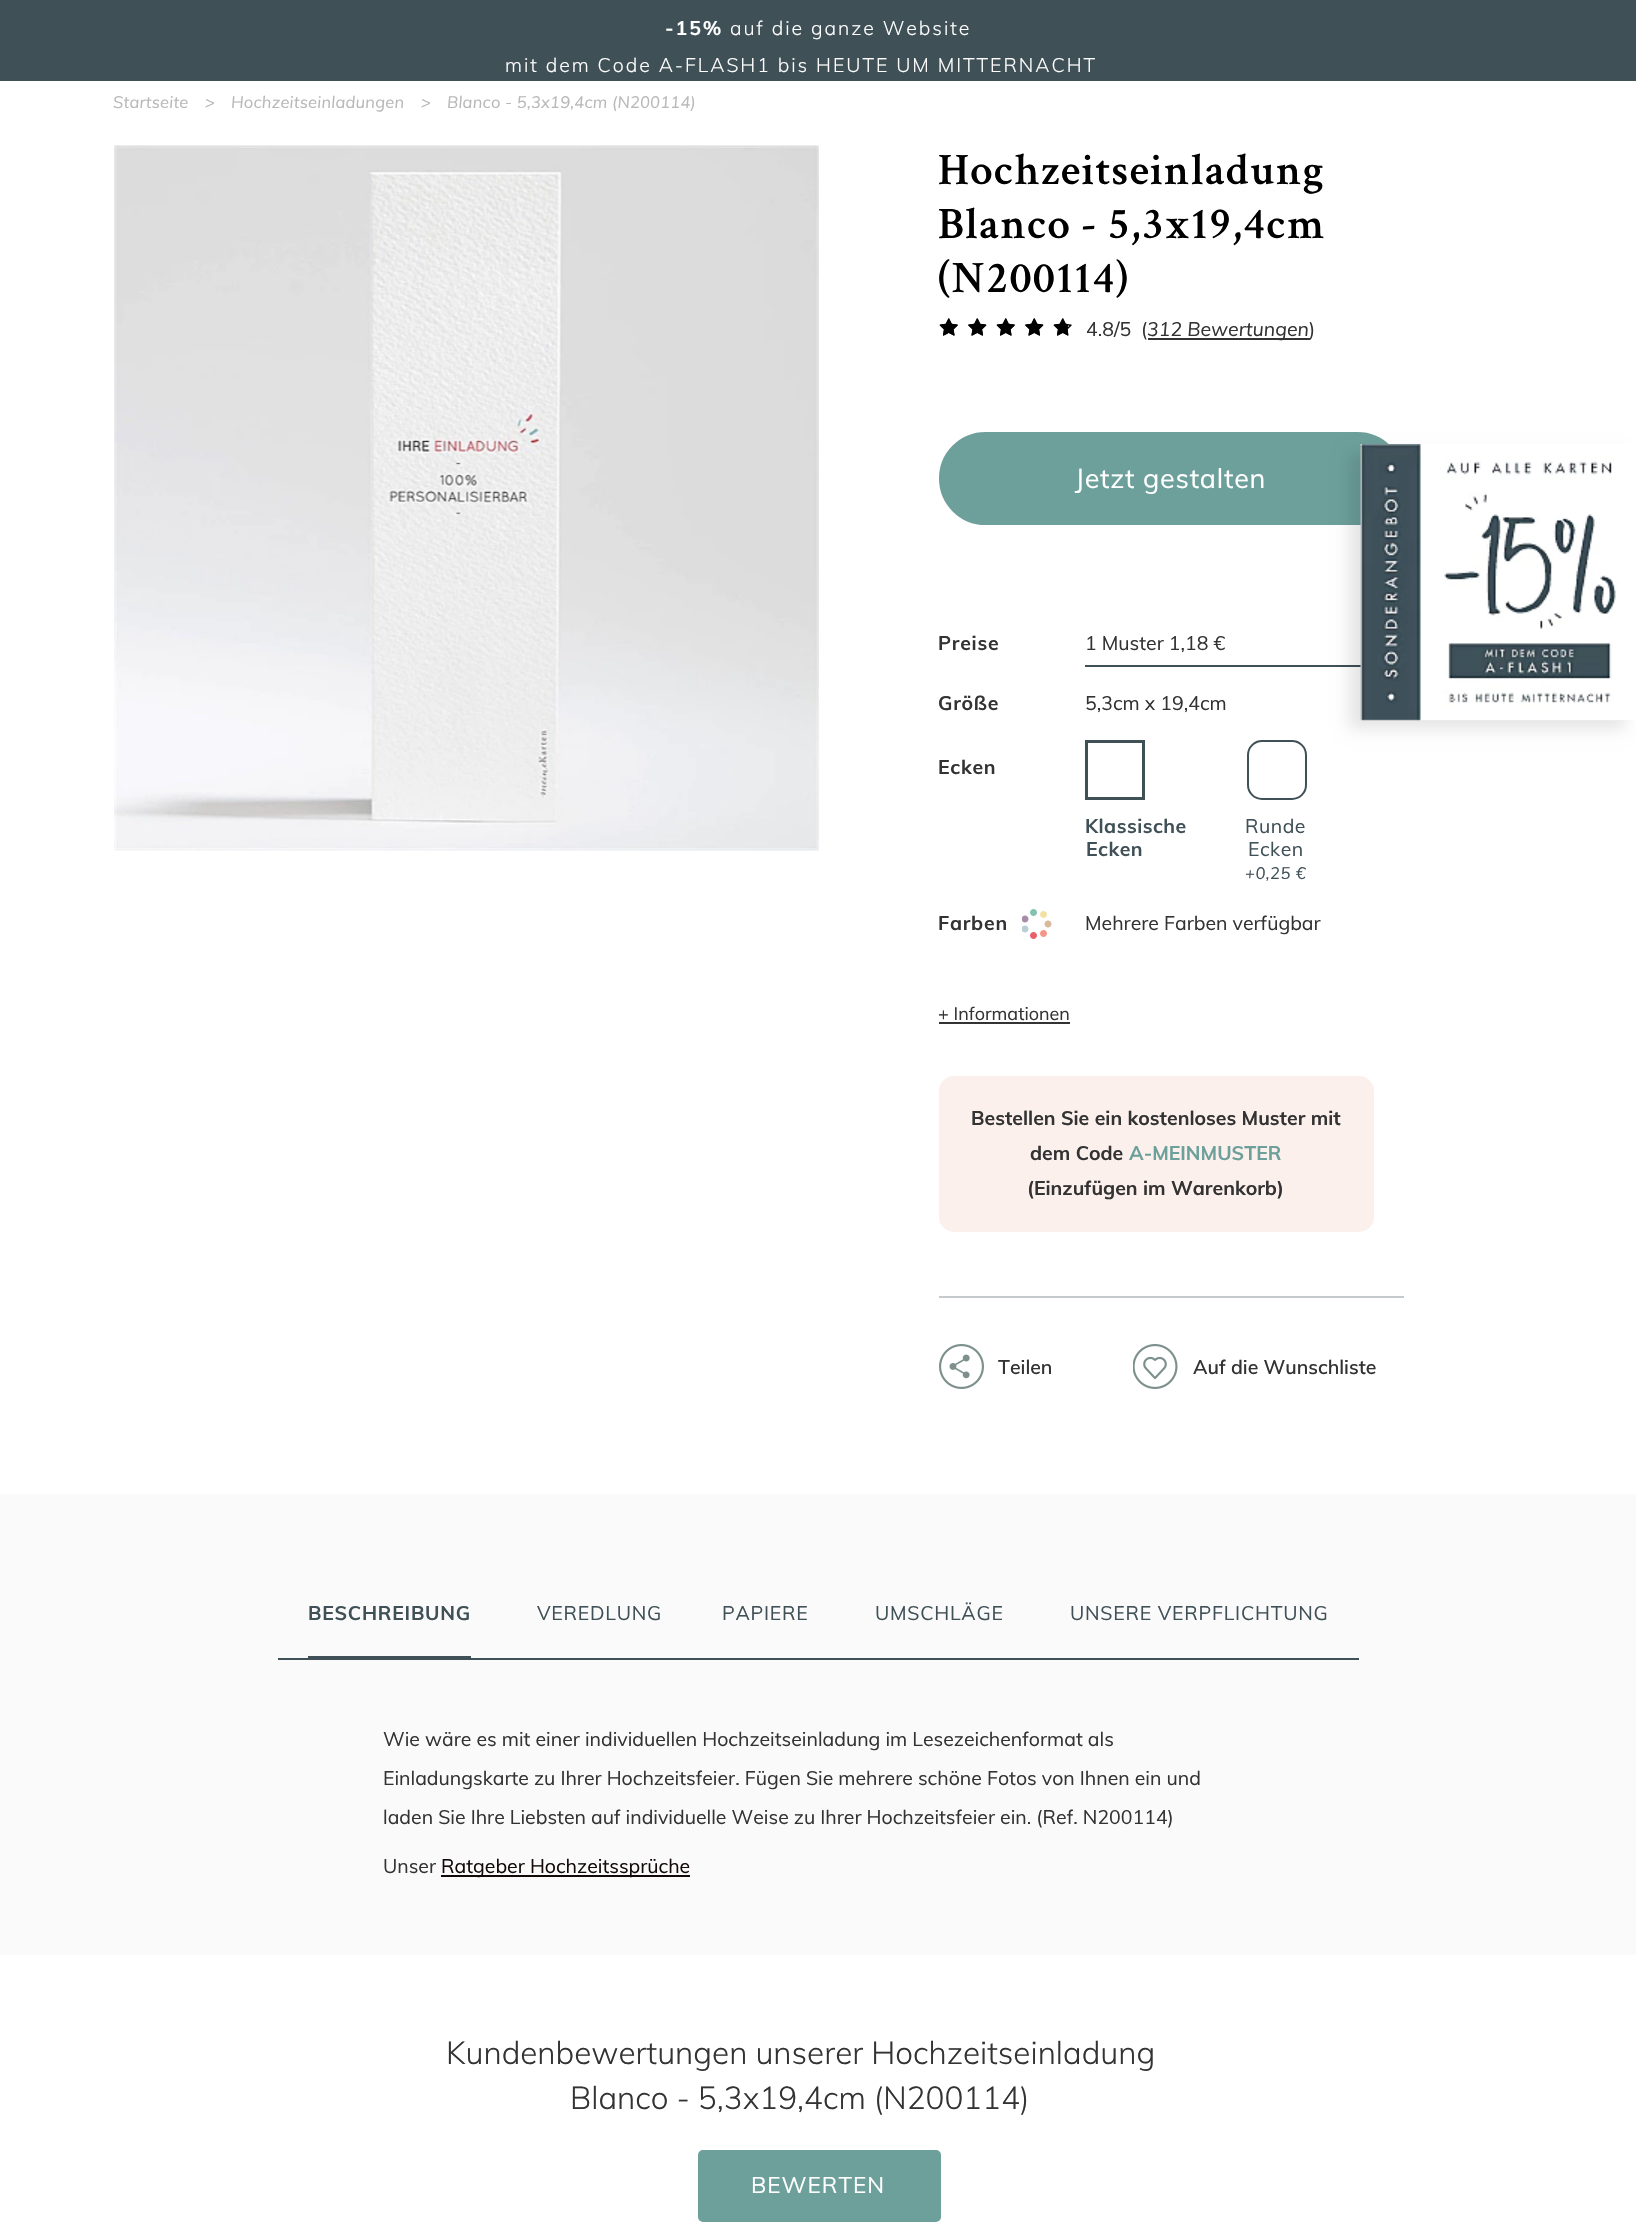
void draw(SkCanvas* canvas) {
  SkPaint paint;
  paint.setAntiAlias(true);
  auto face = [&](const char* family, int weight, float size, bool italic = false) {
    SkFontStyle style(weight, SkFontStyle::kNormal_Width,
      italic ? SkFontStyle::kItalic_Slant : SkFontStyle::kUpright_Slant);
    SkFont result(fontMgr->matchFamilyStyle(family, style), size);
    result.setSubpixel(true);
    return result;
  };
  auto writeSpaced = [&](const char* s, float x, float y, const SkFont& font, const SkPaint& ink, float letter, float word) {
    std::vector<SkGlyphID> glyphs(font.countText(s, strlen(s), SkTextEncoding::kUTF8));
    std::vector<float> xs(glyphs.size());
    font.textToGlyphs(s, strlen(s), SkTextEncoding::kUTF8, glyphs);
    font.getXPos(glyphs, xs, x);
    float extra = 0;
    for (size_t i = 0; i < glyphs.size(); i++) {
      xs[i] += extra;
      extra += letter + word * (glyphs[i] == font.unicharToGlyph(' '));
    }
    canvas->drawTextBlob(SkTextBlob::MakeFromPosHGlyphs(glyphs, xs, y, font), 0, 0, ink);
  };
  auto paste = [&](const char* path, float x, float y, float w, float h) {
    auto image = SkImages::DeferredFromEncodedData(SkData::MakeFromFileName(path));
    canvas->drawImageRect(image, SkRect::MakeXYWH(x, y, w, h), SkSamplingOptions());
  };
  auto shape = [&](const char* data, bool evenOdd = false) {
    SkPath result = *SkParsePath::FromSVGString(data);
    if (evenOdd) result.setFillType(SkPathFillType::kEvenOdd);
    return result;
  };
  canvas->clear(0xffffffff);
  paint.setColor(0xff3f5057);
  canvas->drawRect(SkRect::MakeXYWH(0, 0, 1636, 81), paint);
  paste("img/1.png", 114, 145, 705, 706);
  paste("img/2.png", 939, 318, 19, 18);
  paste("img/3.png", 939, 318, 19, 18);
  paste("img/4.png", 968, 318, 19, 18);
  paste("img/5.png", 968, 318, 19, 18);
  paste("img/2.png", 996, 318, 19, 18);
  paste("img/3.png", 996, 318, 19, 18);
  paste("img/4.png", 1025, 318, 19, 18);
  paste("img/5.png", 1025, 318, 19, 18);
  paste("img/6.png", 1053, 318, 15, 18);
  paste("img/7.png", 1053, 318, 19, 18);
  paint.setColor(0xff333333);
  canvas->drawRect(SkRect::MakeXYWH(1148, 338, 162, 2), paint);
  paint.setColor(0xff6da09b);
  canvas->drawRoundRect(SkRect::MakeXYWH(940, 433, 463, 91), 45.5f, 45.5f, paint);
  paint.setStroke(true);
  paint.setStrokeWidth(2);
  canvas->drawRoundRect(SkRect::MakeXYWH(940, 433, 463, 91), 45.5f, 45.5f, paint);
  paint.setStroke(false);
  paint.setColor(0xff3f5057);
  canvas->drawRect(SkRect::MakeXYWH(1085, 665, 276, 2), paint);
  paint.setStroke(true);
  paint.setStrokeWidth(3);
  canvas->drawRect(SkRect::MakeXYWH(1086.5f, 741.5f, 57, 57), paint);
  paint.setStrokeWidth(2);
  canvas->drawRoundRect(SkRect::MakeXYWH(1248, 741, 58, 58), 14, 14, paint);
  paste("img/8.png", 1022, 909, 30, 30);
  paint.setStroke(false);
  paint.setColor(0xff333333);
  canvas->drawRect(SkRect::MakeXYWH(939, 1022, 131, 2), paint);
  paint.setColor(0xfffbf0ec);
  canvas->drawRoundRect(SkRect::MakeXYWH(939, 1076, 435, 156), 15, 15, paint);
  paint.setColor(0xffc5cbcd);
  canvas->drawRect(SkRect::MakeXYWH(939, 1296, 465, 2), paint);
  paste("img/9.png", 939, 1344, 45, 45);
  paste("img/10.png", 1133, 1344, 45, 45);
  {
    const struct { float x, y, w, h; SkColor color; } items[] = {
      {0, 1494, 1636, 461, 0xfffafafa},
      {278, 1658, 1081, 2, 0xff3f5057},
      {308, 1656, 163, 2, 0xff3f5057},
      {441, 1875, 249, 2, 0xff120909},
    };
    for (auto [x, y, w, h, color] : items) {
      paint.setColor(color);
      canvas->drawRect(SkRect::MakeXYWH(x, y, w, h), paint);
    }
  }
  paint.setColor(0xff6da09b);
  canvas->drawRoundRect(SkRect::MakeXYWH(699, 2151, 241, 70), 4, 4, paint);
  paint.setStroke(true);
  canvas->drawRoundRect(SkRect::MakeXYWH(699, 2151, 241, 70), 4, 4, paint);
  canvas->save();
  canvas->clipPath(shape("M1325 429H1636V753H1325ZM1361 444H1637V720H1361Z", true), true);
  paint.setStroke(false);
  paint.setColor(0x1a000000);
  paint.setMaskFilter(SkMaskFilter::MakeBlur(kNormal_SkBlurStyle, 7.5f));
  canvas->drawRect(SkRect::MakeXYWH(1349, 453, 276, 276), paint);
  paint.setMaskFilter(nullptr);
  canvas->restore();
  paste("img/11.png", 1360, 444, 258, 277);
  auto f0 = face("Muli", 700, 19.5f);
  paint.setColor(0xffffffff);
  writeSpaced("-15%", 665, 35, f0, paint, 1.95f, 0);
  auto f1 = face("Muli", 300, 19.5f);
  writeSpaced("auf die ganze Website", 730, 35, f1, paint, 1.95f, 0);
  writeSpaced("mit dem Code A-FLASH1 bis HEUTE UM MITTERNACHT", 505, 72, f1, paint, 1.95f, 0);
  auto f2 = face("Muli", 400, 16.5f, true);
  paint.setColor(0xffb7b8b9);
  {
    const struct { const char* s; float x, y; } items[] = {
      {"Startseite", 113, 108},
      {">", 205, 108},
      {"Hochzeitseinladungen", 231, 108},
      {">", 421, 108},
      {"Blanco - 5,3x19,4cm (N200114)", 447, 108},
    };
    for (auto [s, x, y] : items) {
      writeSpaced(s, x, y, f2, paint, 0.2f, 0);
    }
  }
  auto f3 = face("Crimson Text", 600, 45);
  paint.setColor(0xff000000);
  {
    const struct { const char* s; float x, y; } items[] = {
      {"Hochzeitseinladung", 938, 184},
      {"Blanco - 5,3x19,4cm", 938, 238},
      {"(N200114)", 938, 292},
    };
    for (auto [s, x, y] : items) {
      writeSpaced(s, x, y, f3, paint, 1.25f, 0);
    }
  }
  auto f4 = face("Muli", 400, 19.5f);
  paint.setColor(0xff333333);
  canvas->drawString("4.8/5", 1086, 336, f4, paint);
  canvas->drawString("(", 1141, 336, f4, paint);
  auto f5 = face("Muli", 400, 19.5f, true);
  canvas->drawString("312 Bewertungen", 1147, 336, f5, paint);
  canvas->drawString(")", 1309, 336, f4, paint);
  auto f6 = face("Muli", 400, 27);
  paint.setColor(0xffffffff);
  writeSpaced("Jetzt gestalten", 1075, 488, f6, paint, 0.75f, 0);
  paint.setColor(0xff333333);
  writeSpaced("Preise", 938, 650, f0, paint, 0.75f, 0);
  canvas->drawString("1 Muster 1,18 €", 1085, 650, f4, paint);
  writeSpaced("Größe", 938, 710, f0, paint, 0.75f, 0);
  canvas->drawString("5,3cm x 19,4cm", 1085, 710, f4, paint);
  writeSpaced("Ecken", 938, 774, f0, paint, 0.75f, 0);
  paint.setColor(0xff3f5057);
  writeSpaced("Klassische", 1085, 833, f0, paint, 0.5f, 0);
  writeSpaced("Ecken", 1086, 856, f0, paint, 0.5f, 0);
  writeSpaced("Runde", 1245, 833, f4, paint, 0.5f, 0);
  writeSpaced("Ecken", 1248, 856, f4, paint, 0.5f, 0);
  writeSpaced("+0,25 €", 1245, 879, f2, paint, 0.5f, 0);
  paint.setColor(0xff333333);
  writeSpaced("Farben", 938, 930, f0, paint, 0.75f, 0);
  canvas->drawString("Mehrere Farben verfügbar", 1085, 930, f4, paint);
  auto f7 = face("Muli", 400, 18);
  canvas->drawString("+ Informationen", 938, 1020, f7, paint);
  canvas->drawString("Bestellen Sie ein kostenloses Muster mit", 971, 1125, f0, paint);
  canvas->drawString("dem Code", 1030, 1160, f0, paint);
  paint.setColor(0xff6da09b);
  canvas->drawString("A-MEINMUSTER", 1129, 1160, f0, paint);
  paint.setColor(0xff333333);
  canvas->drawString("(Einzufügen im Warenkorb)", 1027, 1195, f0, paint);
  auto f8 = face("Muli", 600, 19.5f);
  canvas->drawString("Teilen", 998, 1374, f8, paint);
  canvas->drawString("Auf die Wunschliste", 1193, 1374, f8, paint);
  paint.setColor(0xff3f5057);
  writeSpaced("BESCHREIBUNG", 308, 1620, f0, paint, 0.75f, 0);
  {
    const struct { const char* s; float x, y; } items[] = {
      {"VEREDLUNG", 537, 1620},
      {"PAPIERE", 722, 1620},
      {"UMSCHLÄGE", 875, 1620},
      {"UNSERE VERPFLICHTUNG", 1070, 1620},
    };
    for (auto [s, x, y] : items) {
      writeSpaced(s, x, y, f4, paint, 0.75f, 0);
    }
  }
  paint.setColor(0xff333333);
  {
    const struct { const char* s; float x, y; } items[] = {
      {"Wie wäre es mit einer individuellen Hochzeitseinladung im Lesezeichenformat als", 383, 1746},
      {"Einladungskarte zu Ihrer Hochzeitsfeier. Fügen Sie mehrere schöne Fotos von Ihnen ein und", 383, 1785},
      {"laden Sie Ihre Liebsten auf individuelle Weise zu Ihrer Hochzeitsfeier ein. (Ref. N200114)", 383, 1824},
      {"Unser", 383, 1873},
    };
    for (auto [s, x, y] : items) {
      canvas->drawString(s, x, y, f4, paint);
    }
  }
  paint.setColor(0xff120909);
  canvas->drawString("Ratgeber Hochzeitssprüche", 441, 1873, f4, paint);
  auto f9 = face("Muli", 300, 31.5f);
  paint.setColor(0xff333333);
  canvas->drawString("Kundenbewertungen unserer Hochzeitseinladung", 446, 2064, f9, paint);
  canvas->drawString("Blanco - 5,3x19,4cm (N200114)", 570, 2109, f9, paint);
  auto f10 = face("Muli", 400, 22.5f);
  paint.setColor(0xffffffff);
  writeSpaced("BEWERTEN", 751, 2193, f10, paint, 1, 0);
}
